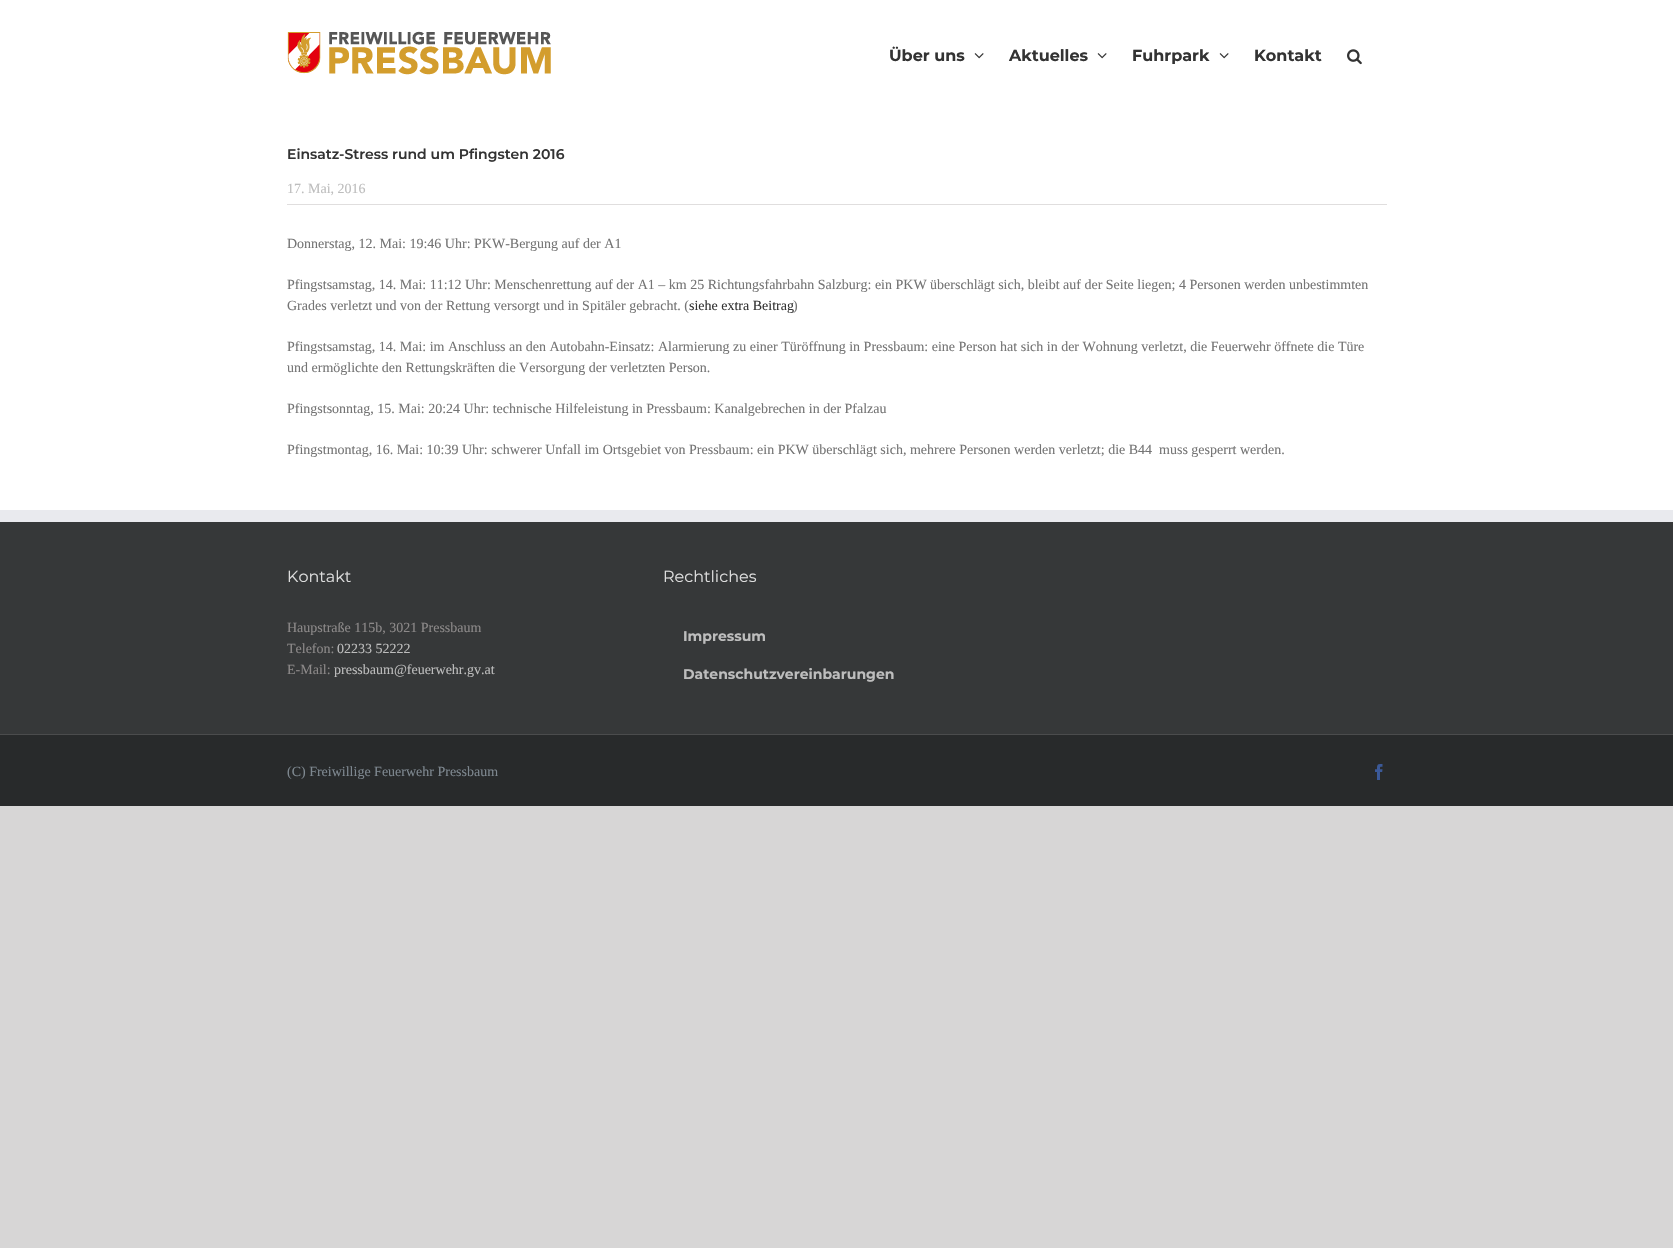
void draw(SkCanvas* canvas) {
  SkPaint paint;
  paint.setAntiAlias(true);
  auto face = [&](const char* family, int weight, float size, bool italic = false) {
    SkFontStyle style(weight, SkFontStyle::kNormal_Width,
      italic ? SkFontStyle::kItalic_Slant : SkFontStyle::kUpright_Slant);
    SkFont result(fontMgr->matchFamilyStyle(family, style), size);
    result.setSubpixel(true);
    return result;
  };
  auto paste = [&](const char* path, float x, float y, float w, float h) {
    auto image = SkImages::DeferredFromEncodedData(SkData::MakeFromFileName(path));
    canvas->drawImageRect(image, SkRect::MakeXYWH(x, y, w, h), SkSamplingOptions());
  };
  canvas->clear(0xffd7d6d6);
  paint.setColor(0xffffffff);
  canvas->drawRect(SkRect::MakeXYWH(0, 0, 1673, 510), paint);
  paste("img/1.png", 287, 31, 264, 44);
  paste("img/2.png", 974, 53, 10, 6);
  paste("img/2.png", 1097, 53, 10, 6);
  paste("img/2.png", 1219, 53, 10, 6);
  paste("img/3.png", 1347, 49, 15, 16);
  {
    const struct { float x, y, w, h; SkColor color; } items[] = {
      {287, 204, 1100, 1, 0xffe0dede},
      {0, 522, 1673, 212, 0xff363839},
      {0, 510, 1673, 12, 0xffe9eaee},
      {0, 735, 1673, 71, 0xff282a2b},
      {0, 734, 1673, 1, 0xff4b4c4d},
    };
    for (auto [x, y, w, h, color] : items) {
      paint.setColor(color);
      canvas->drawRect(SkRect::MakeXYWH(x, y, w, h), paint);
    }
  }
  paste("img/4.png", 1375, 764, 8, 16);
  auto f0 = face("Montserrat", 700, 16);
  paint.setColor(0xff333333);
  {
    const struct { const char* s; float x, y; } items[] = {
      {"Über uns", 889, 61},
      {"Aktuelles", 1009, 61},
      {"Fuhrpark", 1132, 61},
      {"Kontakt", 1254, 61},
    };
    for (auto [s, x, y] : items) {
      canvas->drawString(s, x, y, f0, paint);
    }
  }
  auto f1 = face("Montserrat", 600, 14);
  canvas->drawString("Einsatz-Stress rund um Pfingsten 2016", 287, 159, f1, paint);
  auto f2 = face("Liberation Serif", 400, 14);
  paint.setColor(0xffbdbdbd);
  canvas->drawString("17. Mai, 2016", 287, 193, f2, paint);
  paint.setColor(0xff747474);
  {
    const struct { const char* s; float x, y; } items[] = {
      {"Donnerstag, 12. Mai: 19:46 Uhr: PKW-Bergung auf der A1", 287, 248},
      {"Pfingstsamstag, 14. Mai: 11:12 Uhr: Menschenrettung auf der A1 – km 25 Richtungsfahrbahn Salzburg: ein PKW überschlägt sich, bleibt auf der Seite liegen; 4 Personen werden unbestimmten", 287, 289},
      {"Grades verletzt und von der Rettung versorgt und in Spitäler gebracht. (", 287, 310},
    };
    for (auto [s, x, y] : items) {
      canvas->drawString(s, x, y, f2, paint);
    }
  }
  paint.setColor(0xff333333);
  canvas->drawString("siehe extra Beitrag", 689, 310, f2, paint);
  paint.setColor(0xff747474);
  {
    const struct { const char* s; float x, y; } items[] = {
      {")", 793, 310},
      {"Pfingstsamstag, 14. Mai: im Anschluss an den Autobahn-Einsatz: Alarmierung zu einer Türöffnung in Pressbaum: eine Person hat sich in der Wohnung verletzt, die Feuerwehr öffnete die Türe", 287, 351},
      {"und ermöglichte den Rettungskräften die Versorgung der verletzten Person.", 287, 372},
      {"Pfingstsonntag, 15. Mai: 20:24 Uhr: technische Hilfeleistung in Pressbaum: Kanalgebrechen in der Pfalzau", 287, 413},
      {"Pfingstmontag, 16. Mai: 10:39 Uhr: schwerer Unfall im Ortsgebiet von Pressbaum: ein PKW überschlägt sich, mehrere Personen werden verletzt; die B44  muss gesperrt werden.", 287, 454},
    };
    for (auto [s, x, y] : items) {
      canvas->drawString(s, x, y, f2, paint);
    }
  }
  auto f3 = face("Montserrat", 400, 16);
  paint.setColor(0xffdddddd);
  canvas->drawString("Kontakt", 287, 582, f3, paint);
  paint.setColor(0xff8c8989);
  canvas->drawString("Haupstraße 115b, 3021 Pressbaum", 287, 632, f2, paint);
  canvas->drawString("Telefon:", 287, 653, f2, paint);
  paint.setColor(0xffbdbdbd);
  canvas->drawString("02233 52222", 337, 653, f2, paint);
  paint.setColor(0xff8c8989);
  canvas->drawString("E-Mail:", 287, 674, f2, paint);
  paint.setColor(0xffbdbdbd);
  canvas->drawString("pressbaum@feuerwehr.gv.at", 334, 674, f2, paint);
  paint.setColor(0xffdddddd);
  canvas->drawString("Rechtliches", 663, 582, f3, paint);
  auto f4 = face("Montserrat", 700, 14);
  paint.setColor(0xffbdbdbd);
  canvas->drawString("Impressum", 683, 641, f4, paint);
  canvas->drawString("Datenschutzvereinbarungen", 683, 679, f4, paint);
  paint.setColor(0xff7e8890);
  canvas->drawString("(C) Freiwillige Feuerwehr Pressbaum", 287, 776, f2, paint);
}
